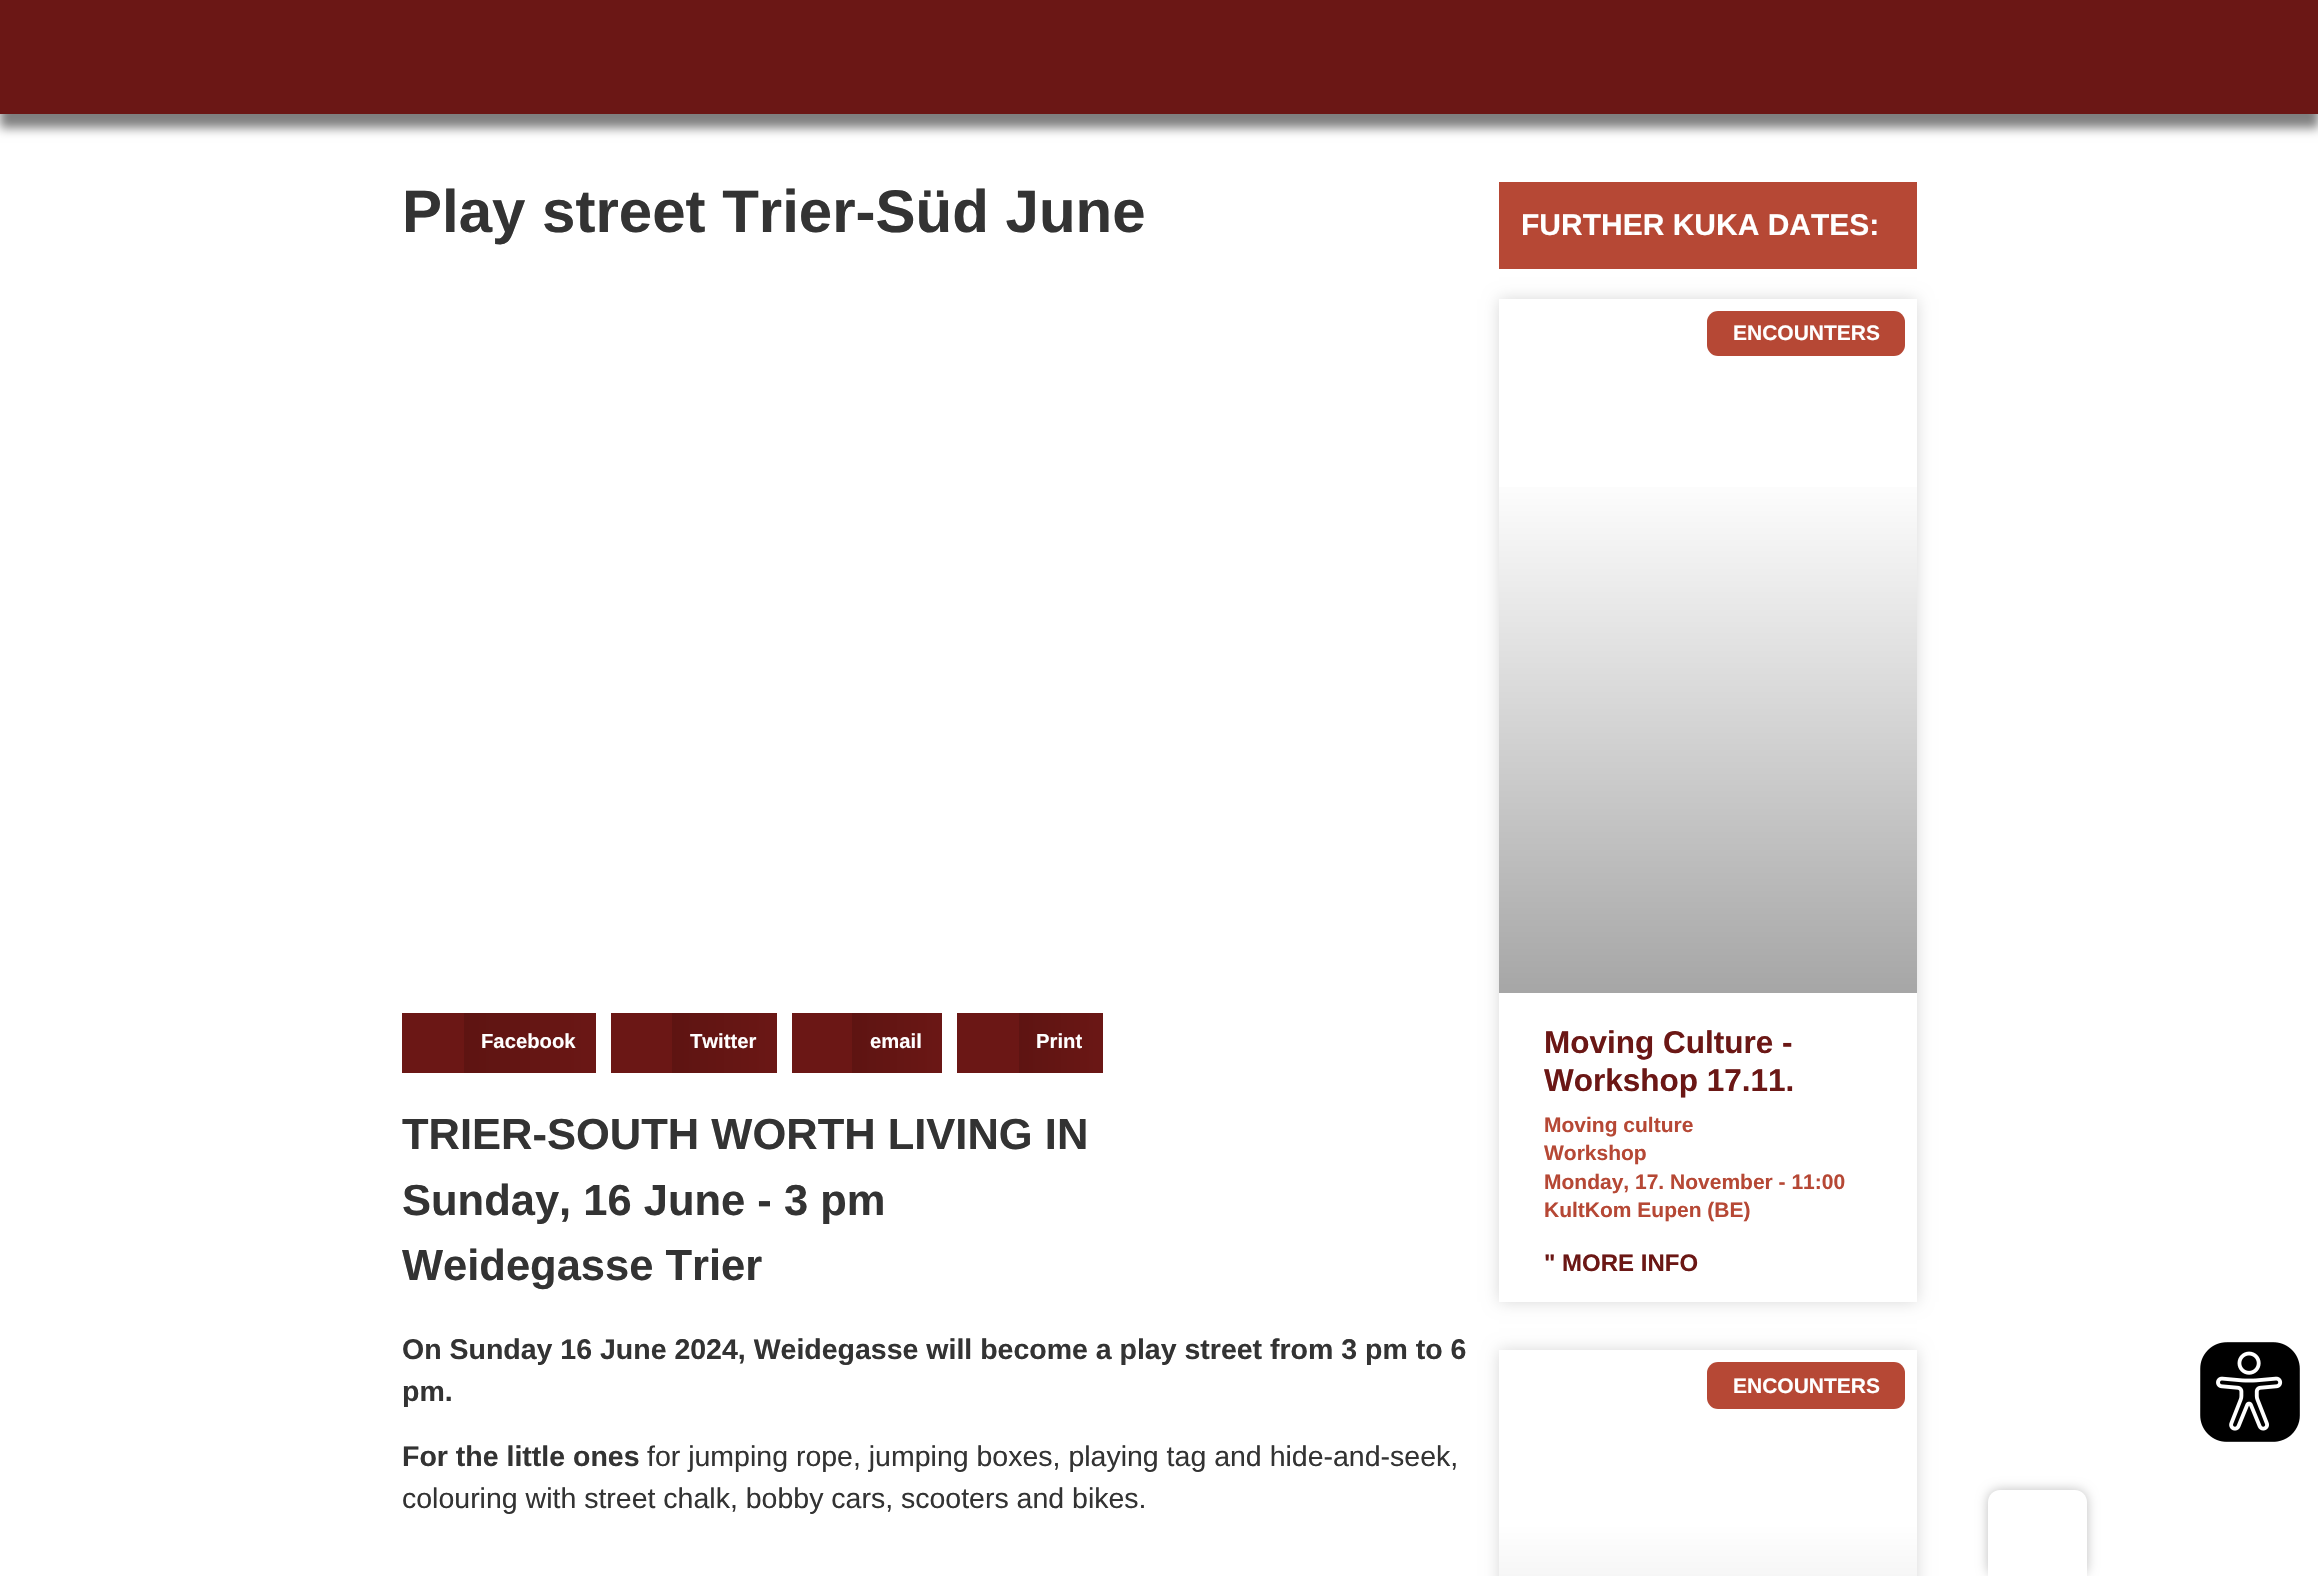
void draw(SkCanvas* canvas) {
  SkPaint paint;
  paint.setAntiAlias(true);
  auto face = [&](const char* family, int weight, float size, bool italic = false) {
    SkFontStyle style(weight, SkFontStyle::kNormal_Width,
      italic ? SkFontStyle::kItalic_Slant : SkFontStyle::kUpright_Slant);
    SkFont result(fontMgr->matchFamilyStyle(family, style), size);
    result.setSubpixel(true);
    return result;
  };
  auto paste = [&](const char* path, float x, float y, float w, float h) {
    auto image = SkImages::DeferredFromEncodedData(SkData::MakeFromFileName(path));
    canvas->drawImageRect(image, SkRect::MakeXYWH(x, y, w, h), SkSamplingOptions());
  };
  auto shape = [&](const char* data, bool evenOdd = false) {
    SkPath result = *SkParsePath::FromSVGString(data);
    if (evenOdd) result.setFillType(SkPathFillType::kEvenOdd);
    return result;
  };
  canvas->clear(0xffffffff);
  paint.setColor(0x80000000);
  paint.setMaskFilter(SkMaskFilter::MakeBlur(kNormal_SkBlurStyle, 5));
  canvas->drawRect(SkRect::MakeXYWH(0, 14, 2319, 114), paint);
  paint.setMaskFilter(nullptr);
  paint.setColor(0xff6b1715);
  canvas->drawRect(SkRect::MakeXYWH(0, 0, 2318, 114), paint);
  canvas->drawRect(SkRect::MakeXYWH(402, 1013, 62, 60), paint);
  {
    const SkColor colors[] = {0xff5e1412, 0xff6b1715};
    const float stops[] = {0, 1};
    const SkPoint ends[] = {{464, 1043}, {596, 1043}};
    paint.setShader(SkGradientShader::MakeLinear(ends, colors, stops, 2, SkTileMode::kClamp));
    paint.setAlpha(255);
  }
  canvas->drawRect(SkRect::MakeXYWH(464, 1013, 132, 60), paint);
  paint.setShader(nullptr);
  paint.setColor(0xff6b1715);
  canvas->drawRect(SkRect::MakeXYWH(611, 1013, 61, 60), paint);
  {
    const SkColor colors[] = {0xff5e1412, 0xff6b1715};
    const float stops[] = {0, 1};
    const SkPoint ends[] = {{672, 1043}, {777, 1043}};
    paint.setShader(SkGradientShader::MakeLinear(ends, colors, stops, 2, SkTileMode::kClamp));
    paint.setAlpha(255);
  }
  canvas->drawRect(SkRect::MakeXYWH(672, 1013, 105, 60), paint);
  paint.setShader(nullptr);
  paint.setColor(0xff6b1715);
  canvas->drawRect(SkRect::MakeXYWH(792, 1013, 60, 60), paint);
  {
    const SkColor colors[] = {0xff5e1412, 0xff6b1715};
    const float stops[] = {0, 1};
    const SkPoint ends[] = {{852, 1043}, {942, 1043}};
    paint.setShader(SkGradientShader::MakeLinear(ends, colors, stops, 2, SkTileMode::kClamp));
    paint.setAlpha(255);
  }
  canvas->drawRect(SkRect::MakeXYWH(852, 1013, 90, 60), paint);
  paint.setShader(nullptr);
  paint.setColor(0xff6b1715);
  canvas->drawRect(SkRect::MakeXYWH(957, 1013, 62, 60), paint);
  {
    const SkColor colors[] = {0xff5e1412, 0xff6b1715};
    const float stops[] = {0, 1};
    const SkPoint ends[] = {{1019, 1043}, {1103, 1043}};
    paint.setShader(SkGradientShader::MakeLinear(ends, colors, stops, 2, SkTileMode::kClamp));
    paint.setAlpha(255);
  }
  canvas->drawRect(SkRect::MakeXYWH(1019, 1013, 84, 60), paint);
  paint.setShader(nullptr);
  paint.setColor(0xffb64835);
  canvas->drawRect(SkRect::MakeXYWH(1499, 182, 418, 87), paint);
  canvas->save();
  canvas->clipPath(shape("M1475 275H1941V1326H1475ZM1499 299H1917V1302H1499Z", true), true);
  paint.setColor(0x26000000);
  paint.setMaskFilter(SkMaskFilter::MakeBlur(kNormal_SkBlurStyle, 7.5f));
  canvas->drawRect(SkRect::MakeXYWH(1499, 299, 418, 1003), paint);
  paint.setMaskFilter(nullptr);
  canvas->restore();
  paint.setColor(0xffb64835);
  canvas->drawRoundRect(SkRect::MakeXYWH(1707, 311, 198, 45), 11, 11, paint);
  {
    const SkColor colors[] = {0xffa6a6a6, 0xffffffff};
    const float stops[] = {0, 0.75f};
    const SkPoint ends[] = {{1708, 993}, {1708, 299}};
    paint.setShader(SkGradientShader::MakeLinear(ends, colors, stops, 2, SkTileMode::kClamp));
    paint.setAlpha(255);
  }
  canvas->drawRect(SkRect::MakeXYWH(1499, 487, 418, 506), paint);
  paint.setShader(nullptr);
  paint.setColor(0x26000000);
  paint.setMaskFilter(SkMaskFilter::MakeBlur(kNormal_SkBlurStyle, 7.5f));
  canvas->drawRect(SkRect::MakeXYWH(1499, 1350, 418, 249), paint);
  paint.setMaskFilter(nullptr);
  {
    const SkColor colors[] = {0xffa6a6a6, 0xffffffff};
    const float stops[] = {0, 0.75f};
    const SkPoint ends[] = {{1708, 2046}, {1708, 1350}};
    paint.setShader(SkGradientShader::MakeLinear(ends, colors, stops, 2, SkTileMode::kClamp));
    paint.setAlpha(255);
  }
  canvas->drawRect(SkRect::MakeXYWH(1499, 1350, 418, 226), paint);
  paint.setShader(nullptr);
  paint.setColor(0xffb64835);
  canvas->drawRoundRect(SkRect::MakeXYWH(1707, 1362, 198, 47), 11, 11, paint);
  paste("img/1.png", 2200, 1342, 100, 100);
  paint.setColor(0x40000000);
  paint.setMaskFilter(SkMaskFilter::MakeBlur(kNormal_SkBlurStyle, 6));
  canvas->drawRoundRect(SkRect::MakeXYWH(1988, 1490, 99, 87), 12, 12, paint);
  paint.setMaskFilter(nullptr);
  paint.setColor(0xffffffff);
  canvas->drawPath(shape("M2000 1490H2075C2081.5 1490 2087 1495.5 2087 1502V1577H1988V1502C1988 1495.5 1993.5 1490 2000 1490Z"), paint);
  auto f0 = face("Liberation Sans", 700, 60);
  paint.setColor(0xff333333);
  canvas->drawString("Play street Trier-Süd June", 402, 232, f0, paint);
  auto f1 = face("Liberation Sans", 700, 20.25f);
  paint.setColor(0xffffffff);
  {
    const struct { const char* s; float x, y; } items[] = {
      {"Facebook", 481, 1048},
      {"Twitter", 690, 1048},
      {"email", 870, 1048},
      {"Print", 1036, 1048},
    };
    for (auto [s, x, y] : items) {
      canvas->drawString(s, x, y, f1, paint);
    }
  }
  auto f2 = face("Liberation Sans", 700, 43.5f);
  paint.setColor(0xff333333);
  {
    const struct { const char* s; float x, y; } items[] = {
      {"TRIER-SOUTH WORTH LIVING IN", 402, 1149},
      {"Sunday, 16 June - 3 pm", 402, 1215},
      {"Weidegasse Trier", 402, 1280},
    };
    for (auto [s, x, y] : items) {
      canvas->drawString(s, x, y, f2, paint);
    }
  }
  auto f3 = face("Liberation Sans", 700, 28.5f);
  {
    const struct { const char* s; float x, y; } items[] = {
      {"On Sunday 16 June 2024, Weidegasse will become a play street from 3 pm to 6", 402, 1359},
      {"pm.", 402, 1401},
      {"For the little ones", 402, 1466},
    };
    for (auto [s, x, y] : items) {
      canvas->drawString(s, x, y, f3, paint);
    }
  }
  auto f4 = face("Liberation Sans", 400, 28.5f);
  canvas->drawString("for jumping rope, jumping boxes, playing tag and hide-and-seek,", 647, 1466, f4, paint);
  canvas->drawString("colouring with street chalk, bobby cars, scooters and bikes.", 402, 1508, f4, paint);
  auto f5 = face("Liberation Sans", 700, 30);
  paint.setColor(0xffffffff);
  canvas->drawString("FURTHER KUKA DATES:", 1521, 235, f5, paint);
  auto f6 = face("Liberation Sans", 700, 21);
  canvas->drawString("ENCOUNTERS", 1733, 340, f6, paint);
  auto f7 = face("Liberation Sans", 700, 31.5f);
  paint.setColor(0xff6b1715);
  canvas->drawString("Moving Culture -", 1544, 1053, f7, paint);
  canvas->drawString("Workshop 17.11.", 1544, 1091, f7, paint);
  paint.setColor(0xffb64835);
  {
    const struct { const char* s; float x, y; } items[] = {
      {"Moving culture", 1544, 1132},
      {"Workshop", 1544, 1160},
      {"Monday, 17. November - 11:00", 1544, 1189},
      {"KultKom Eupen (BE)", 1544, 1217},
    };
    for (auto [s, x, y] : items) {
      canvas->drawString(s, x, y, f6, paint);
    }
  }
  auto f8 = face("Liberation Sans", 700, 24);
  paint.setColor(0xff6b1715);
  canvas->drawString("\" MORE INFO", 1544, 1271, f8, paint);
  paint.setColor(0xffffffff);
  canvas->drawString("ENCOUNTERS", 1733, 1393, f6, paint);
}
